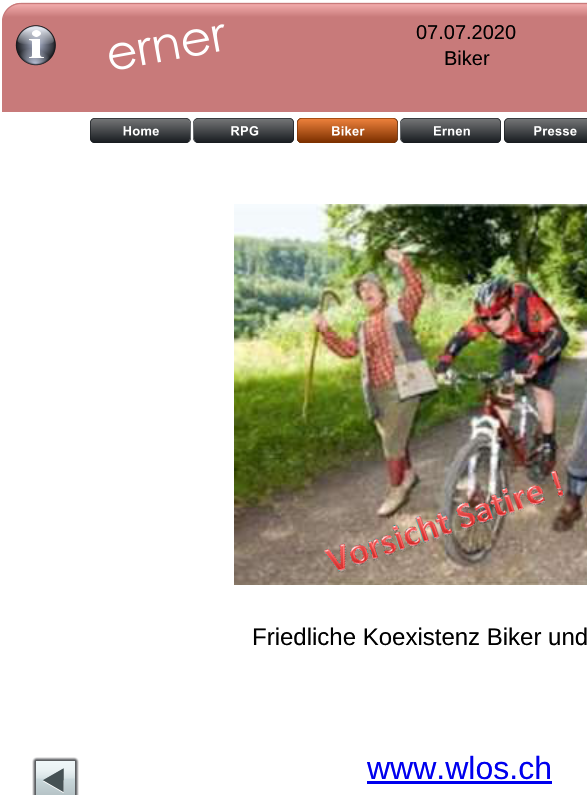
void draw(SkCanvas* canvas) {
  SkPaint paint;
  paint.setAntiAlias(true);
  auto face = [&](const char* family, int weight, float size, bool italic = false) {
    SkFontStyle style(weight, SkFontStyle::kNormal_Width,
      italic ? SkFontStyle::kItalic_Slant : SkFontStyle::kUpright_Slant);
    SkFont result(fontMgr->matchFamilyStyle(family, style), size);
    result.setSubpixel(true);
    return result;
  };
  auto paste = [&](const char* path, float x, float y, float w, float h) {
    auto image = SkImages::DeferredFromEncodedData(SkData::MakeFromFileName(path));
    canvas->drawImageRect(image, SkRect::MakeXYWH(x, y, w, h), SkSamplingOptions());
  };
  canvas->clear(0xffffffff);
  paste("img/1.png", 2, 2, 585, 37);
  paint.setColor(0xffc87a7a);
  canvas->drawRect(SkRect::MakeXYWH(2, 39, 585, 73), paint);
  paste("img/2.png", 15, 25, 41, 41);
  paste("img/3.png", 109, 24, 116, 46);
  paste("img/4.png", 90, 118, 101, 25);
  paste("img/5.png", 193, 118, 101, 25);
  paste("img/6.png", 297, 118, 101, 25);
  paste("img/7.png", 297, 118, 101, 25);
  paste("img/8.png", 400, 118, 101, 25);
  paste("img/9.png", 504, 118, 83, 25);
  paste("img/10.png", 234, 204, 353, 381);
  paste("img/11.png", 324, 470, 241, 103);
  paste("img/12.png", 32, 757, 47, 38);
  paint.setColor(0xff0000ee);
  canvas->drawRect(SkRect::MakeXYWH(367, 781, 185, 3), paint);
  auto f0 = face("Liberation Sans", 400, 20);
  paint.setColor(0xff000000);
  canvas->drawString("07.07.2020", 416, 39, f0, paint);
  canvas->drawString("Biker", 444, 65, f0, paint);
  auto f1 = face("Liberation Sans", 400, 24);
  canvas->drawString("Friedliche Koexistenz Biker und", 252, 645, f1, paint);
  auto f2 = face("Liberation Sans", 400, 32);
  paint.setColor(0xff0000ee);
  canvas->drawString("www.wlos.ch", 367, 779, f2, paint);
}
